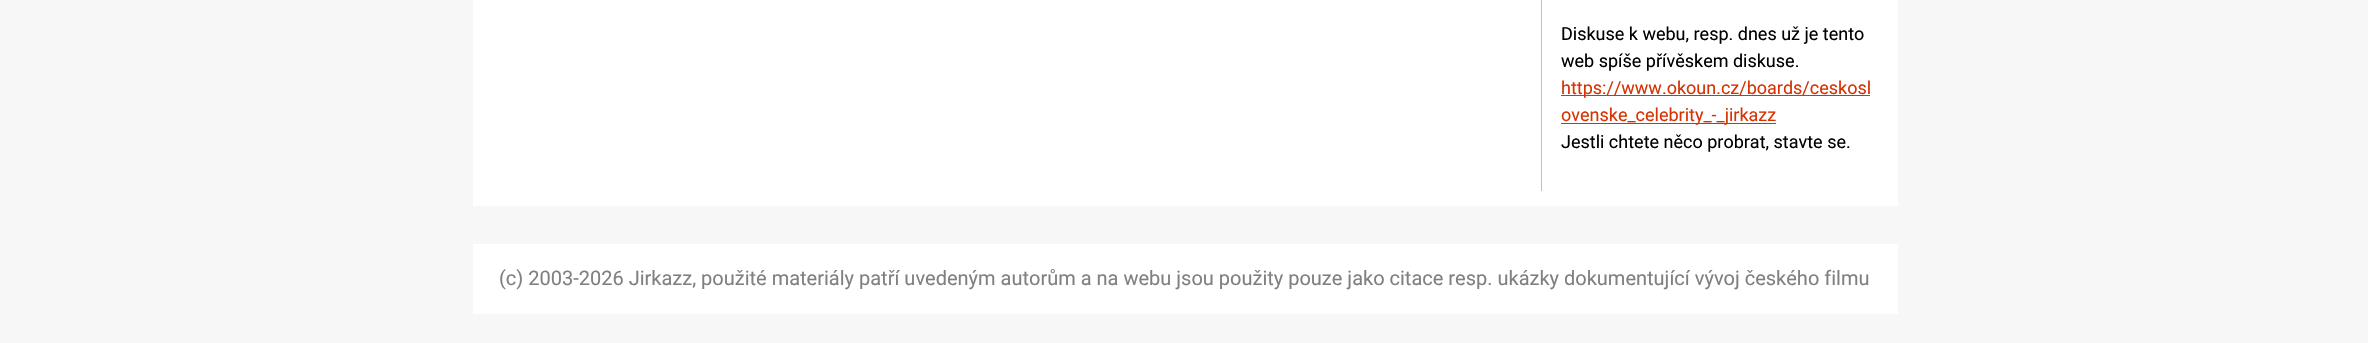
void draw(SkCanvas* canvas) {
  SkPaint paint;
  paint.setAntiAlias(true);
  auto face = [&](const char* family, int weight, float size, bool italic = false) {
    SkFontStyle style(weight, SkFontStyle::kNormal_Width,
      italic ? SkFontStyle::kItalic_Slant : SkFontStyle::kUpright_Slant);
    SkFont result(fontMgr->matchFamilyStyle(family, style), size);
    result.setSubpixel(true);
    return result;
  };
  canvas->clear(0xfff7f7f7);
  {
    const struct { float x, y, w, h; SkColor color; } items[] = {
      {473, 0, 1425, 206, 0xffffffff},
      {1541, 0, 1, 191, 0xffc0c0c0},
      {1561, 95, 309, 1, 0xffd73202},
      {1561, 123, 215, 1, 0xffd73202},
      {473, 244, 1425, 70, 0xffffffff},
    };
    for (auto [x, y, w, h, color] : items) {
      paint.setColor(color);
      canvas->drawRect(SkRect::MakeXYWH(x, y, w, h), paint);
    }
  }
  auto f0 = face("Roboto", 400, 18);
  paint.setColor(0xff000000);
  canvas->drawString("Diskuse k webu, resp. dnes už je tento", 1561, 40, f0, paint);
  canvas->drawString("web spíše přívěskem diskuse.", 1561, 67, f0, paint);
  paint.setColor(0xffd73202);
  canvas->drawString("https://www.okoun.cz/boards/ceskosl", 1561, 94, f0, paint);
  canvas->drawString("ovenske_celebrity_-_jirkazz", 1561, 121, f0, paint);
  paint.setColor(0xff000000);
  canvas->drawString("Jestli chtete něco probrat, stavte se.", 1561, 148, f0, paint);
  auto f1 = face("Roboto", 400, 20);
  paint.setColor(0xff808080);
  canvas->drawString("(c) 2003-2026 Jirkazz, použité materiály patří uvedeným autorům a na webu jsou použity pouze jako citace resp. ukázky dokumentující vývoj českého filmu", 499, 285, f1, paint);
}
